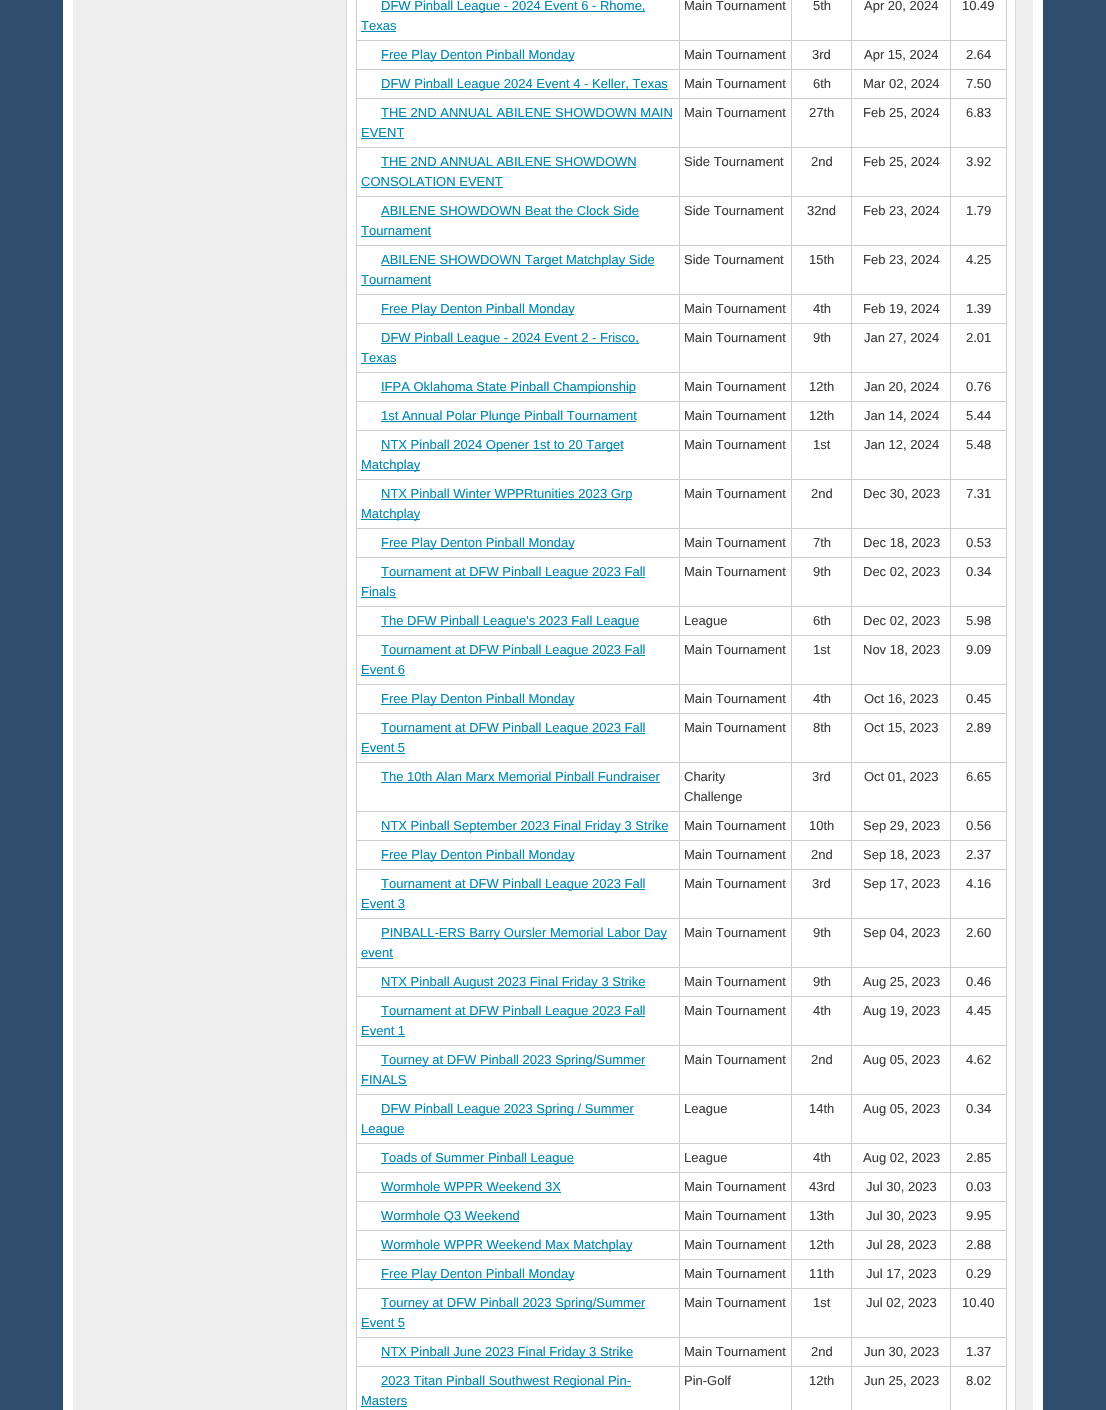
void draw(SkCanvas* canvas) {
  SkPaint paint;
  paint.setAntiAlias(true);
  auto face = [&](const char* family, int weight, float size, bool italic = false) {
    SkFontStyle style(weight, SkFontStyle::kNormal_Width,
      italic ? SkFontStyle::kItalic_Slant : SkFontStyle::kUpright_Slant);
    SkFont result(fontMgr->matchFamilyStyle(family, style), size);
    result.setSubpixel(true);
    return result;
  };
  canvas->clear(0xff2f4e6e);
  {
    const struct { float x, y, w, h; SkColor color; } items[] = {
      {73, 0, 960, 1410, 0xffeeeeee},
      {1033, 0, 10, 1410, 0xffffffff},
      {63, 0, 10, 1410, 0xffffffff},
    };
    for (auto [x, y, w, h, color] : items) {
      paint.setColor(color);
      canvas->drawRect(SkRect::MakeXYWH(x, y, w, h), paint);
    }
  }
  canvas->drawRect(SkRect::MakeXYWH(346.5f, -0.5f, 669, 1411), paint);
  paint.setStroke(true);
  paint.setStrokeWidth(1);
  paint.setColor(0xffdddddd);
  canvas->drawRect(SkRect::MakeXYWH(346.5f, -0.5f, 669, 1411), paint);
  paint.setStroke(false);
  {
    const struct { float x, y, w, h; SkColor color; } items[] = {
      {356, 0, 1, 1410, 0xffcdcdcd},
      {1006, 528, 1, 882, 0xffcdcdcd},
      {1006, 0, 1, 529, 0xffcdcdcd},
      {950, 1366, 1, 44, 0xffcdcdcd},
      {950, 1366, 57, 1, 0xffcdcdcd},
      {950, 1337, 1, 30, 0xffcdcdcd},
      {950, 1337, 57, 1, 0xffcdcdcd},
      {950, 1288, 1, 50, 0xffcdcdcd},
      {950, 1288, 57, 1, 0xffcdcdcd},
      {950, 1259, 1, 30, 0xffcdcdcd},
      {950, 1259, 57, 1, 0xffcdcdcd},
      {950, 1230, 1, 30, 0xffcdcdcd},
      {950, 1230, 57, 1, 0xffcdcdcd},
      {950, 1201, 1, 30, 0xffcdcdcd},
      {950, 1201, 57, 1, 0xffcdcdcd},
      {950, 1172, 1, 30, 0xffcdcdcd},
      {950, 1172, 57, 1, 0xffcdcdcd},
      {950, 1143, 1, 30, 0xffcdcdcd},
      {950, 1143, 57, 1, 0xffcdcdcd},
      {950, 1094, 1, 50, 0xffcdcdcd},
      {950, 1094, 57, 1, 0xffcdcdcd},
      {950, 1045, 1, 50, 0xffcdcdcd},
      {950, 1045, 57, 1, 0xffcdcdcd},
      {950, 996, 1, 50, 0xffcdcdcd},
      {950, 996, 57, 1, 0xffcdcdcd},
      {950, 967, 1, 30, 0xffcdcdcd},
      {950, 967, 57, 1, 0xffcdcdcd},
      {950, 918, 1, 50, 0xffcdcdcd},
      {950, 918, 57, 1, 0xffcdcdcd},
      {950, 869, 1, 50, 0xffcdcdcd},
      {950, 869, 57, 1, 0xffcdcdcd},
      {950, 840, 1, 30, 0xffcdcdcd},
      {950, 840, 57, 1, 0xffcdcdcd},
      {950, 811, 1, 30, 0xffcdcdcd},
      {950, 811, 57, 1, 0xffcdcdcd},
      {950, 762, 1, 50, 0xffcdcdcd},
      {950, 762, 57, 1, 0xffcdcdcd},
      {950, 713, 1, 50, 0xffcdcdcd},
      {950, 713, 57, 1, 0xffcdcdcd},
      {950, 684, 1, 30, 0xffcdcdcd},
      {950, 684, 57, 1, 0xffcdcdcd},
      {950, 635, 1, 50, 0xffcdcdcd},
      {950, 635, 57, 1, 0xffcdcdcd},
      {950, 606, 1, 30, 0xffcdcdcd},
      {950, 606, 57, 1, 0xffcdcdcd},
      {950, 557, 1, 50, 0xffcdcdcd},
      {950, 557, 57, 1, 0xffcdcdcd},
      {950, 528, 1, 30, 0xffcdcdcd},
      {950, 528, 57, 1, 0xffcdcdcd},
      {950, 479, 1, 50, 0xffcdcdcd},
      {950, 479, 57, 1, 0xffcdcdcd},
      {950, 430, 1, 50, 0xffcdcdcd},
      {950, 430, 57, 1, 0xffcdcdcd},
      {950, 401, 1, 30, 0xffcdcdcd},
      {950, 401, 57, 1, 0xffcdcdcd},
      {950, 372, 1, 30, 0xffcdcdcd},
      {950, 372, 57, 1, 0xffcdcdcd},
      {950, 323, 1, 50, 0xffcdcdcd},
      {950, 323, 57, 1, 0xffcdcdcd},
      {950, 294, 1, 30, 0xffcdcdcd},
      {950, 294, 57, 1, 0xffcdcdcd},
      {950, 245, 1, 50, 0xffcdcdcd},
      {950, 245, 57, 1, 0xffcdcdcd},
      {950, 196, 1, 50, 0xffcdcdcd},
      {950, 196, 57, 1, 0xffcdcdcd},
      {950, 147, 1, 50, 0xffcdcdcd},
      {950, 147, 57, 1, 0xffcdcdcd},
      {950, 98, 1, 50, 0xffcdcdcd},
      {950, 98, 57, 1, 0xffcdcdcd},
      {950, 69, 1, 30, 0xffcdcdcd},
      {950, 69, 57, 1, 0xffcdcdcd},
      {950, 40, 1, 30, 0xffcdcdcd},
      {950, 40, 57, 1, 0xffcdcdcd},
      {950, 0, 1, 41, 0xffcdcdcd},
      {851, 1366, 1, 44, 0xffcdcdcd},
      {851, 1366, 100, 1, 0xffcdcdcd},
      {851, 1337, 1, 30, 0xffcdcdcd},
      {851, 1337, 100, 1, 0xffcdcdcd},
      {851, 1288, 1, 50, 0xffcdcdcd},
      {851, 1288, 100, 1, 0xffcdcdcd},
      {851, 1259, 1, 30, 0xffcdcdcd},
      {851, 1259, 100, 1, 0xffcdcdcd},
      {851, 1230, 1, 30, 0xffcdcdcd},
      {851, 1230, 100, 1, 0xffcdcdcd},
      {851, 1201, 1, 30, 0xffcdcdcd},
      {851, 1201, 100, 1, 0xffcdcdcd},
      {851, 1172, 1, 30, 0xffcdcdcd},
      {851, 1172, 100, 1, 0xffcdcdcd},
      {851, 1143, 1, 30, 0xffcdcdcd},
      {851, 1143, 100, 1, 0xffcdcdcd},
      {851, 1094, 1, 50, 0xffcdcdcd},
      {851, 1094, 100, 1, 0xffcdcdcd},
      {851, 1045, 1, 50, 0xffcdcdcd},
      {851, 1045, 100, 1, 0xffcdcdcd},
      {851, 996, 1, 50, 0xffcdcdcd},
      {851, 996, 100, 1, 0xffcdcdcd},
      {851, 967, 1, 30, 0xffcdcdcd},
      {851, 967, 100, 1, 0xffcdcdcd},
      {851, 918, 1, 50, 0xffcdcdcd},
      {851, 918, 100, 1, 0xffcdcdcd},
      {851, 869, 1, 50, 0xffcdcdcd},
      {851, 869, 100, 1, 0xffcdcdcd},
      {851, 840, 1, 30, 0xffcdcdcd},
      {851, 840, 100, 1, 0xffcdcdcd},
      {851, 811, 1, 30, 0xffcdcdcd},
      {851, 811, 100, 1, 0xffcdcdcd},
      {851, 762, 1, 50, 0xffcdcdcd},
      {851, 762, 100, 1, 0xffcdcdcd},
      {851, 713, 1, 50, 0xffcdcdcd},
      {851, 713, 100, 1, 0xffcdcdcd},
      {851, 684, 1, 30, 0xffcdcdcd},
      {851, 684, 100, 1, 0xffcdcdcd},
      {851, 635, 1, 50, 0xffcdcdcd},
      {851, 635, 100, 1, 0xffcdcdcd},
      {851, 606, 1, 30, 0xffcdcdcd},
      {851, 606, 100, 1, 0xffcdcdcd},
      {851, 557, 1, 50, 0xffcdcdcd},
      {851, 557, 100, 1, 0xffcdcdcd},
      {851, 528, 1, 30, 0xffcdcdcd},
      {851, 528, 100, 1, 0xffcdcdcd},
      {851, 479, 1, 50, 0xffcdcdcd},
      {851, 479, 100, 1, 0xffcdcdcd},
      {851, 430, 1, 50, 0xffcdcdcd},
      {851, 430, 100, 1, 0xffcdcdcd},
      {851, 401, 1, 30, 0xffcdcdcd},
      {851, 401, 100, 1, 0xffcdcdcd},
      {851, 372, 1, 30, 0xffcdcdcd},
      {851, 372, 100, 1, 0xffcdcdcd},
      {851, 323, 1, 50, 0xffcdcdcd},
      {851, 323, 100, 1, 0xffcdcdcd},
      {851, 294, 1, 30, 0xffcdcdcd},
      {851, 294, 100, 1, 0xffcdcdcd},
      {851, 245, 1, 50, 0xffcdcdcd},
      {851, 245, 100, 1, 0xffcdcdcd},
      {851, 196, 1, 50, 0xffcdcdcd},
      {851, 196, 100, 1, 0xffcdcdcd},
      {851, 147, 1, 50, 0xffcdcdcd},
      {851, 147, 100, 1, 0xffcdcdcd},
      {851, 98, 1, 50, 0xffcdcdcd},
      {851, 98, 100, 1, 0xffcdcdcd},
      {851, 69, 1, 30, 0xffcdcdcd},
      {851, 69, 100, 1, 0xffcdcdcd},
      {851, 40, 1, 30, 0xffcdcdcd},
      {851, 40, 100, 1, 0xffcdcdcd},
      {851, 0, 1, 41, 0xffcdcdcd},
      {791, 1366, 1, 44, 0xffcdcdcd},
      {791, 1366, 61, 1, 0xffcdcdcd},
      {791, 1337, 1, 30, 0xffcdcdcd},
      {791, 1337, 61, 1, 0xffcdcdcd},
      {791, 1288, 1, 50, 0xffcdcdcd},
      {791, 1288, 61, 1, 0xffcdcdcd},
      {791, 1259, 1, 30, 0xffcdcdcd},
      {791, 1259, 61, 1, 0xffcdcdcd},
      {791, 1230, 1, 30, 0xffcdcdcd},
      {791, 1230, 61, 1, 0xffcdcdcd},
      {791, 1201, 1, 30, 0xffcdcdcd},
      {791, 1201, 61, 1, 0xffcdcdcd},
      {791, 1172, 1, 30, 0xffcdcdcd},
      {791, 1172, 61, 1, 0xffcdcdcd},
      {791, 1143, 1, 30, 0xffcdcdcd},
      {791, 1143, 61, 1, 0xffcdcdcd},
      {791, 1094, 1, 50, 0xffcdcdcd},
      {791, 1094, 61, 1, 0xffcdcdcd},
      {791, 1045, 1, 50, 0xffcdcdcd},
      {791, 1045, 61, 1, 0xffcdcdcd},
      {791, 996, 1, 50, 0xffcdcdcd},
      {791, 996, 61, 1, 0xffcdcdcd},
      {791, 967, 1, 30, 0xffcdcdcd},
      {791, 967, 61, 1, 0xffcdcdcd},
      {791, 918, 1, 50, 0xffcdcdcd},
      {791, 918, 61, 1, 0xffcdcdcd},
      {791, 869, 1, 50, 0xffcdcdcd},
      {791, 869, 61, 1, 0xffcdcdcd},
      {791, 840, 1, 30, 0xffcdcdcd},
      {791, 840, 61, 1, 0xffcdcdcd},
      {791, 811, 1, 30, 0xffcdcdcd},
      {791, 811, 61, 1, 0xffcdcdcd},
      {791, 762, 1, 50, 0xffcdcdcd},
      {791, 762, 61, 1, 0xffcdcdcd},
      {791, 713, 1, 50, 0xffcdcdcd},
      {791, 713, 61, 1, 0xffcdcdcd},
      {791, 684, 1, 30, 0xffcdcdcd},
      {791, 684, 61, 1, 0xffcdcdcd},
      {791, 635, 1, 50, 0xffcdcdcd},
      {791, 635, 61, 1, 0xffcdcdcd},
      {791, 606, 1, 30, 0xffcdcdcd},
      {791, 606, 61, 1, 0xffcdcdcd},
      {791, 557, 1, 50, 0xffcdcdcd},
      {791, 557, 61, 1, 0xffcdcdcd},
      {791, 528, 1, 30, 0xffcdcdcd},
      {791, 528, 61, 1, 0xffcdcdcd},
      {791, 479, 1, 50, 0xffcdcdcd},
      {791, 479, 61, 1, 0xffcdcdcd},
      {791, 430, 1, 50, 0xffcdcdcd},
      {791, 430, 61, 1, 0xffcdcdcd},
      {791, 401, 1, 30, 0xffcdcdcd},
      {791, 401, 61, 1, 0xffcdcdcd},
      {791, 372, 1, 30, 0xffcdcdcd},
      {791, 372, 61, 1, 0xffcdcdcd},
      {791, 323, 1, 50, 0xffcdcdcd},
      {791, 323, 61, 1, 0xffcdcdcd},
      {791, 294, 1, 30, 0xffcdcdcd},
      {791, 294, 61, 1, 0xffcdcdcd},
      {791, 245, 1, 50, 0xffcdcdcd},
      {791, 245, 61, 1, 0xffcdcdcd},
      {791, 196, 1, 50, 0xffcdcdcd},
      {791, 196, 61, 1, 0xffcdcdcd},
      {791, 147, 1, 50, 0xffcdcdcd},
      {791, 147, 61, 1, 0xffcdcdcd},
      {791, 98, 1, 50, 0xffcdcdcd},
      {791, 98, 61, 1, 0xffcdcdcd},
      {791, 69, 1, 30, 0xffcdcdcd},
      {791, 69, 61, 1, 0xffcdcdcd},
      {791, 40, 1, 30, 0xffcdcdcd},
      {791, 40, 61, 1, 0xffcdcdcd},
      {791, 0, 1, 41, 0xffcdcdcd},
      {679, 1366, 1, 44, 0xffcdcdcd},
      {679, 1366, 113, 1, 0xffcdcdcd},
      {679, 1337, 1, 30, 0xffcdcdcd},
      {679, 1337, 113, 1, 0xffcdcdcd},
      {679, 1288, 1, 50, 0xffcdcdcd},
      {679, 1288, 113, 1, 0xffcdcdcd},
      {679, 1259, 1, 30, 0xffcdcdcd},
      {679, 1259, 113, 1, 0xffcdcdcd},
      {679, 1230, 1, 30, 0xffcdcdcd},
      {679, 1230, 113, 1, 0xffcdcdcd},
      {679, 1201, 1, 30, 0xffcdcdcd},
      {679, 1201, 113, 1, 0xffcdcdcd},
      {679, 1172, 1, 30, 0xffcdcdcd},
      {679, 1172, 113, 1, 0xffcdcdcd},
      {679, 1143, 1, 30, 0xffcdcdcd},
      {679, 1143, 113, 1, 0xffcdcdcd},
      {679, 1094, 1, 50, 0xffcdcdcd},
      {679, 1094, 113, 1, 0xffcdcdcd},
      {679, 1045, 1, 50, 0xffcdcdcd},
      {679, 1045, 113, 1, 0xffcdcdcd},
      {679, 996, 1, 50, 0xffcdcdcd},
      {679, 996, 113, 1, 0xffcdcdcd},
      {679, 967, 1, 30, 0xffcdcdcd},
      {679, 967, 113, 1, 0xffcdcdcd},
      {679, 918, 1, 50, 0xffcdcdcd},
      {679, 918, 113, 1, 0xffcdcdcd},
      {679, 869, 1, 50, 0xffcdcdcd},
      {679, 869, 113, 1, 0xffcdcdcd},
      {679, 840, 1, 30, 0xffcdcdcd},
      {679, 840, 113, 1, 0xffcdcdcd},
      {679, 811, 1, 30, 0xffcdcdcd},
      {679, 811, 113, 1, 0xffcdcdcd},
      {679, 762, 1, 50, 0xffcdcdcd},
      {679, 762, 113, 1, 0xffcdcdcd},
      {679, 713, 1, 50, 0xffcdcdcd},
      {679, 713, 113, 1, 0xffcdcdcd},
      {679, 684, 1, 30, 0xffcdcdcd},
      {679, 684, 113, 1, 0xffcdcdcd},
      {679, 635, 1, 50, 0xffcdcdcd},
      {679, 635, 113, 1, 0xffcdcdcd},
      {679, 606, 1, 30, 0xffcdcdcd},
      {679, 606, 113, 1, 0xffcdcdcd},
      {679, 557, 1, 50, 0xffcdcdcd},
      {679, 557, 113, 1, 0xffcdcdcd},
      {679, 528, 1, 30, 0xffcdcdcd},
      {679, 528, 113, 1, 0xffcdcdcd},
      {679, 479, 1, 50, 0xffcdcdcd},
      {679, 479, 113, 1, 0xffcdcdcd},
      {679, 430, 1, 50, 0xffcdcdcd},
      {679, 430, 113, 1, 0xffcdcdcd},
      {679, 401, 1, 30, 0xffcdcdcd},
      {679, 401, 113, 1, 0xffcdcdcd},
      {679, 372, 1, 30, 0xffcdcdcd},
      {679, 372, 113, 1, 0xffcdcdcd},
      {679, 323, 1, 50, 0xffcdcdcd},
      {679, 323, 113, 1, 0xffcdcdcd},
      {679, 294, 1, 30, 0xffcdcdcd},
      {679, 294, 113, 1, 0xffcdcdcd},
      {679, 245, 1, 50, 0xffcdcdcd},
      {679, 245, 113, 1, 0xffcdcdcd},
      {679, 196, 1, 50, 0xffcdcdcd},
      {679, 196, 113, 1, 0xffcdcdcd},
      {679, 147, 1, 50, 0xffcdcdcd},
      {679, 147, 113, 1, 0xffcdcdcd},
      {679, 98, 1, 50, 0xffcdcdcd},
      {679, 98, 113, 1, 0xffcdcdcd},
      {679, 69, 1, 30, 0xffcdcdcd},
      {679, 69, 113, 1, 0xffcdcdcd},
      {679, 40, 1, 30, 0xffcdcdcd},
      {679, 40, 113, 1, 0xffcdcdcd},
      {679, 0, 1, 41, 0xffcdcdcd},
      {356, 40, 324, 1, 0xffcdcdcd},
      {381, 11, 264, 1, 0xff0088b3},
      {361, 31, 35, 1, 0xff0088b3},
      {356, 69, 324, 1, 0xffcdcdcd},
      {381, 60, 193, 1, 0xff0088b3},
      {356, 98, 324, 1, 0xffcdcdcd},
      {381, 89, 287, 1, 0xff0088b3},
      {356, 147, 324, 1, 0xffcdcdcd},
      {381, 118, 291, 1, 0xff0088b3},
      {361, 138, 43, 1, 0xff0088b3},
      {356, 196, 324, 1, 0xffcdcdcd},
      {381, 167, 255, 1, 0xff0088b3},
      {361, 187, 142, 1, 0xff0088b3},
      {356, 245, 324, 1, 0xffcdcdcd},
      {381, 216, 258, 1, 0xff0088b3},
      {361, 236, 70, 1, 0xff0088b3},
      {356, 294, 324, 1, 0xffcdcdcd},
      {381, 265, 273, 1, 0xff0088b3},
      {361, 285, 70, 1, 0xff0088b3},
      {356, 323, 324, 1, 0xffcdcdcd},
      {381, 314, 193, 1, 0xff0088b3},
      {356, 372, 324, 1, 0xffcdcdcd},
      {381, 343, 258, 1, 0xff0088b3},
      {361, 363, 35, 1, 0xff0088b3},
      {356, 401, 324, 1, 0xffcdcdcd},
      {381, 392, 255, 1, 0xff0088b3},
      {356, 430, 324, 1, 0xffcdcdcd},
      {381, 421, 255, 1, 0xff0088b3},
      {356, 479, 324, 1, 0xffcdcdcd},
      {381, 450, 242, 1, 0xff0088b3},
      {361, 470, 59, 1, 0xff0088b3},
      {356, 528, 324, 1, 0xffcdcdcd},
      {381, 499, 251, 1, 0xff0088b3},
      {361, 519, 59, 1, 0xff0088b3},
      {356, 557, 324, 1, 0xffcdcdcd},
      {381, 548, 193, 1, 0xff0088b3},
      {356, 606, 324, 1, 0xffcdcdcd},
      {381, 577, 264, 1, 0xff0088b3},
      {361, 597, 35, 1, 0xff0088b3},
      {356, 635, 324, 1, 0xffcdcdcd},
      {381, 626, 258, 1, 0xff0088b3},
      {356, 684, 324, 1, 0xffcdcdcd},
      {381, 655, 264, 1, 0xff0088b3},
      {361, 675, 44, 1, 0xff0088b3},
      {356, 713, 324, 1, 0xffcdcdcd},
      {381, 704, 193, 1, 0xff0088b3},
      {356, 762, 324, 1, 0xffcdcdcd},
      {381, 733, 264, 1, 0xff0088b3},
      {361, 753, 44, 1, 0xff0088b3},
      {356, 811, 324, 1, 0xffcdcdcd},
      {381, 782, 279, 1, 0xff0088b3},
      {356, 840, 324, 1, 0xffcdcdcd},
      {381, 831, 287, 1, 0xff0088b3},
      {356, 869, 324, 1, 0xffcdcdcd},
      {381, 860, 193, 1, 0xff0088b3},
      {356, 918, 324, 1, 0xffcdcdcd},
      {381, 889, 264, 1, 0xff0088b3},
      {361, 909, 44, 1, 0xff0088b3},
      {356, 967, 324, 1, 0xffcdcdcd},
      {381, 938, 286, 1, 0xff0088b3},
      {361, 958, 32, 1, 0xff0088b3},
      {356, 996, 324, 1, 0xffcdcdcd},
      {381, 987, 264, 1, 0xff0088b3},
      {356, 1045, 324, 1, 0xffcdcdcd},
      {381, 1016, 264, 1, 0xff0088b3},
      {361, 1036, 44, 1, 0xff0088b3},
      {356, 1094, 324, 1, 0xffcdcdcd},
      {381, 1065, 264, 1, 0xff0088b3},
      {361, 1085, 46, 1, 0xff0088b3},
      {356, 1143, 324, 1, 0xffcdcdcd},
      {381, 1114, 253, 1, 0xff0088b3},
      {361, 1134, 43, 1, 0xff0088b3},
      {356, 1172, 324, 1, 0xffcdcdcd},
      {381, 1163, 193, 1, 0xff0088b3},
      {356, 1201, 324, 1, 0xffcdcdcd},
      {381, 1192, 180, 1, 0xff0088b3},
      {356, 1230, 324, 1, 0xffcdcdcd},
      {381, 1221, 138, 1, 0xff0088b3},
      {356, 1259, 324, 1, 0xffcdcdcd},
      {381, 1250, 251, 1, 0xff0088b3},
      {356, 1288, 324, 1, 0xffcdcdcd},
      {381, 1279, 193, 1, 0xff0088b3},
      {356, 1337, 324, 1, 0xffcdcdcd},
      {381, 1308, 264, 1, 0xff0088b3},
      {361, 1328, 44, 1, 0xff0088b3},
      {356, 1366, 324, 1, 0xffcdcdcd},
      {381, 1357, 252, 1, 0xff0088b3},
      {381, 1386, 250, 1, 0xff0088b3},
      {361, 1406, 46, 1, 0xff0088b3},
    };
    for (auto [x, y, w, h, color] : items) {
      paint.setColor(color);
      canvas->drawRect(SkRect::MakeXYWH(x, y, w, h), paint);
    }
  }
  auto f0 = face("Liberation Sans", 400, 13);
  canvas->drawString("DFW Pinball League - 2024 Event 6 - Rhome,", 381, 10, f0, paint);
  canvas->drawString("Texas", 361, 30, f0, paint);
  paint.setColor(0xff3d3d3d);
  {
    const struct { const char* s; float x, y; } items[] = {
      {"Main Tournament", 684, 10},
      {"5th", 813, 10},
      {"Apr 20, 2024", 864, 10},
      {"10.49", 962, 10},
    };
    for (auto [s, x, y] : items) {
      canvas->drawString(s, x, y, f0, paint);
    }
  }
  paint.setColor(0xff0088b3);
  canvas->drawString("Free Play Denton Pinball Monday", 381, 59, f0, paint);
  paint.setColor(0xff3d3d3d);
  {
    const struct { const char* s; float x, y; } items[] = {
      {"Main Tournament", 684, 59},
      {"3rd", 812, 59},
      {"Apr 15, 2024", 864, 59},
      {"2.64", 966, 59},
    };
    for (auto [s, x, y] : items) {
      canvas->drawString(s, x, y, f0, paint);
    }
  }
  paint.setColor(0xff0088b3);
  canvas->drawString("DFW Pinball League 2024 Event 4 - Keller, Texas", 381, 88, f0, paint);
  paint.setColor(0xff3d3d3d);
  {
    const struct { const char* s; float x, y; } items[] = {
      {"Main Tournament", 684, 88},
      {"6th", 813, 88},
      {"Mar 02, 2024", 863, 88},
      {"7.50", 966, 88},
    };
    for (auto [s, x, y] : items) {
      canvas->drawString(s, x, y, f0, paint);
    }
  }
  paint.setColor(0xff0088b3);
  canvas->drawString("THE 2ND ANNUAL ABILENE SHOWDOWN MAIN", 381, 117, f0, paint);
  canvas->drawString("EVENT", 361, 137, f0, paint);
  paint.setColor(0xff3d3d3d);
  {
    const struct { const char* s; float x, y; } items[] = {
      {"Main Tournament", 684, 117},
      {"27th", 809, 117},
      {"Feb 25, 2024", 863, 117},
      {"6.83", 966, 117},
    };
    for (auto [s, x, y] : items) {
      canvas->drawString(s, x, y, f0, paint);
    }
  }
  paint.setColor(0xff0088b3);
  canvas->drawString("THE 2ND ANNUAL ABILENE SHOWDOWN", 381, 166, f0, paint);
  canvas->drawString("CONSOLATION EVENT", 361, 186, f0, paint);
  paint.setColor(0xff3d3d3d);
  {
    const struct { const char* s; float x, y; } items[] = {
      {"Side Tournament", 684, 166},
      {"2nd", 811, 166},
      {"Feb 25, 2024", 863, 166},
      {"3.92", 966, 166},
    };
    for (auto [s, x, y] : items) {
      canvas->drawString(s, x, y, f0, paint);
    }
  }
  paint.setColor(0xff0088b3);
  canvas->drawString("ABILENE SHOWDOWN Beat the Clock Side", 381, 215, f0, paint);
  canvas->drawString("Tournament", 361, 235, f0, paint);
  paint.setColor(0xff3d3d3d);
  {
    const struct { const char* s; float x, y; } items[] = {
      {"Side Tournament", 684, 215},
      {"32nd", 807, 215},
      {"Feb 23, 2024", 863, 215},
      {"1.79", 966, 215},
    };
    for (auto [s, x, y] : items) {
      canvas->drawString(s, x, y, f0, paint);
    }
  }
  paint.setColor(0xff0088b3);
  canvas->drawString("ABILENE SHOWDOWN Target Matchplay Side", 381, 264, f0, paint);
  canvas->drawString("Tournament", 361, 284, f0, paint);
  paint.setColor(0xff3d3d3d);
  {
    const struct { const char* s; float x, y; } items[] = {
      {"Side Tournament", 684, 264},
      {"15th", 809, 264},
      {"Feb 23, 2024", 863, 264},
      {"4.25", 966, 264},
    };
    for (auto [s, x, y] : items) {
      canvas->drawString(s, x, y, f0, paint);
    }
  }
  paint.setColor(0xff0088b3);
  canvas->drawString("Free Play Denton Pinball Monday", 381, 313, f0, paint);
  paint.setColor(0xff3d3d3d);
  {
    const struct { const char* s; float x, y; } items[] = {
      {"Main Tournament", 684, 313},
      {"4th", 813, 313},
      {"Feb 19, 2024", 863, 313},
      {"1.39", 966, 313},
    };
    for (auto [s, x, y] : items) {
      canvas->drawString(s, x, y, f0, paint);
    }
  }
  paint.setColor(0xff0088b3);
  canvas->drawString("DFW Pinball League - 2024 Event 2 - Frisco,", 381, 342, f0, paint);
  canvas->drawString("Texas", 361, 362, f0, paint);
  paint.setColor(0xff3d3d3d);
  {
    const struct { const char* s; float x, y; } items[] = {
      {"Main Tournament", 684, 342},
      {"9th", 813, 342},
      {"Jan 27, 2024", 864, 342},
      {"2.01", 966, 342},
    };
    for (auto [s, x, y] : items) {
      canvas->drawString(s, x, y, f0, paint);
    }
  }
  paint.setColor(0xff0088b3);
  canvas->drawString("IFPA Oklahoma State Pinball Championship", 381, 391, f0, paint);
  paint.setColor(0xff3d3d3d);
  {
    const struct { const char* s; float x, y; } items[] = {
      {"Main Tournament", 684, 391},
      {"12th", 809, 391},
      {"Jan 20, 2024", 864, 391},
      {"0.76", 966, 391},
    };
    for (auto [s, x, y] : items) {
      canvas->drawString(s, x, y, f0, paint);
    }
  }
  paint.setColor(0xff0088b3);
  canvas->drawString("1st Annual Polar Plunge Pinball Tournament", 381, 420, f0, paint);
  paint.setColor(0xff3d3d3d);
  {
    const struct { const char* s; float x, y; } items[] = {
      {"Main Tournament", 684, 420},
      {"12th", 809, 420},
      {"Jan 14, 2024", 864, 420},
      {"5.44", 966, 420},
    };
    for (auto [s, x, y] : items) {
      canvas->drawString(s, x, y, f0, paint);
    }
  }
  paint.setColor(0xff0088b3);
  canvas->drawString("NTX Pinball 2024 Opener 1st to 20 Target", 381, 449, f0, paint);
  canvas->drawString("Matchplay", 361, 469, f0, paint);
  paint.setColor(0xff3d3d3d);
  {
    const struct { const char* s; float x, y; } items[] = {
      {"Main Tournament", 684, 449},
      {"1st", 813, 449},
      {"Jan 12, 2024", 864, 449},
      {"5.48", 966, 449},
    };
    for (auto [s, x, y] : items) {
      canvas->drawString(s, x, y, f0, paint);
    }
  }
  paint.setColor(0xff0088b3);
  canvas->drawString("NTX Pinball Winter WPPRtunities 2023 Grp", 381, 498, f0, paint);
  canvas->drawString("Matchplay", 361, 518, f0, paint);
  paint.setColor(0xff3d3d3d);
  {
    const struct { const char* s; float x, y; } items[] = {
      {"Main Tournament", 684, 498},
      {"2nd", 811, 498},
      {"Dec 30, 2023", 863, 498},
      {"7.31", 966, 498},
    };
    for (auto [s, x, y] : items) {
      canvas->drawString(s, x, y, f0, paint);
    }
  }
  paint.setColor(0xff0088b3);
  canvas->drawString("Free Play Denton Pinball Monday", 381, 547, f0, paint);
  paint.setColor(0xff3d3d3d);
  {
    const struct { const char* s; float x, y; } items[] = {
      {"Main Tournament", 684, 547},
      {"7th", 813, 547},
      {"Dec 18, 2023", 863, 547},
      {"0.53", 966, 547},
    };
    for (auto [s, x, y] : items) {
      canvas->drawString(s, x, y, f0, paint);
    }
  }
  paint.setColor(0xff0088b3);
  canvas->drawString("Tournament at DFW Pinball League 2023 Fall", 381, 576, f0, paint);
  canvas->drawString("Finals", 361, 596, f0, paint);
  paint.setColor(0xff3d3d3d);
  {
    const struct { const char* s; float x, y; } items[] = {
      {"Main Tournament", 684, 576},
      {"9th", 813, 576},
      {"Dec 02, 2023", 863, 576},
      {"0.34", 966, 576},
    };
    for (auto [s, x, y] : items) {
      canvas->drawString(s, x, y, f0, paint);
    }
  }
  paint.setColor(0xff0088b3);
  canvas->drawString("The DFW Pinball League's 2023 Fall League", 381, 625, f0, paint);
  paint.setColor(0xff3d3d3d);
  {
    const struct { const char* s; float x, y; } items[] = {
      {"League", 684, 625},
      {"6th", 813, 625},
      {"Dec 02, 2023", 863, 625},
      {"5.98", 966, 625},
    };
    for (auto [s, x, y] : items) {
      canvas->drawString(s, x, y, f0, paint);
    }
  }
  paint.setColor(0xff0088b3);
  canvas->drawString("Tournament at DFW Pinball League 2023 Fall", 381, 654, f0, paint);
  canvas->drawString("Event 6", 361, 674, f0, paint);
  paint.setColor(0xff3d3d3d);
  {
    const struct { const char* s; float x, y; } items[] = {
      {"Main Tournament", 684, 654},
      {"1st", 813, 654},
      {"Nov 18, 2023", 863, 654},
      {"9.09", 966, 654},
    };
    for (auto [s, x, y] : items) {
      canvas->drawString(s, x, y, f0, paint);
    }
  }
  paint.setColor(0xff0088b3);
  canvas->drawString("Free Play Denton Pinball Monday", 381, 703, f0, paint);
  paint.setColor(0xff3d3d3d);
  {
    const struct { const char* s; float x, y; } items[] = {
      {"Main Tournament", 684, 703},
      {"4th", 813, 703},
      {"Oct 16, 2023", 864, 703},
      {"0.45", 966, 703},
    };
    for (auto [s, x, y] : items) {
      canvas->drawString(s, x, y, f0, paint);
    }
  }
  paint.setColor(0xff0088b3);
  canvas->drawString("Tournament at DFW Pinball League 2023 Fall", 381, 732, f0, paint);
  canvas->drawString("Event 5", 361, 752, f0, paint);
  paint.setColor(0xff3d3d3d);
  {
    const struct { const char* s; float x, y; } items[] = {
      {"Main Tournament", 684, 732},
      {"8th", 813, 732},
      {"Oct 15, 2023", 864, 732},
      {"2.89", 966, 732},
    };
    for (auto [s, x, y] : items) {
      canvas->drawString(s, x, y, f0, paint);
    }
  }
  paint.setColor(0xff0088b3);
  canvas->drawString("The 10th Alan Marx Memorial Pinball Fundraiser", 381, 781, f0, paint);
  paint.setColor(0xff3d3d3d);
  {
    const struct { const char* s; float x, y; } items[] = {
      {"Charity", 684, 781},
      {"Challenge", 684, 801},
      {"3rd", 812, 781},
      {"Oct 01, 2023", 864, 781},
      {"6.65", 966, 781},
    };
    for (auto [s, x, y] : items) {
      canvas->drawString(s, x, y, f0, paint);
    }
  }
  paint.setColor(0xff0088b3);
  canvas->drawString("NTX Pinball September 2023 Final Friday 3 Strike", 381, 830, f0, paint);
  paint.setColor(0xff3d3d3d);
  {
    const struct { const char* s; float x, y; } items[] = {
      {"Main Tournament", 684, 830},
      {"10th", 809, 830},
      {"Sep 29, 2023", 863, 830},
      {"0.56", 966, 830},
    };
    for (auto [s, x, y] : items) {
      canvas->drawString(s, x, y, f0, paint);
    }
  }
  paint.setColor(0xff0088b3);
  canvas->drawString("Free Play Denton Pinball Monday", 381, 859, f0, paint);
  paint.setColor(0xff3d3d3d);
  {
    const struct { const char* s; float x, y; } items[] = {
      {"Main Tournament", 684, 859},
      {"2nd", 811, 859},
      {"Sep 18, 2023", 863, 859},
      {"2.37", 966, 859},
    };
    for (auto [s, x, y] : items) {
      canvas->drawString(s, x, y, f0, paint);
    }
  }
  paint.setColor(0xff0088b3);
  canvas->drawString("Tournament at DFW Pinball League 2023 Fall", 381, 888, f0, paint);
  canvas->drawString("Event 3", 361, 908, f0, paint);
  paint.setColor(0xff3d3d3d);
  {
    const struct { const char* s; float x, y; } items[] = {
      {"Main Tournament", 684, 888},
      {"3rd", 812, 888},
      {"Sep 17, 2023", 863, 888},
      {"4.16", 966, 888},
    };
    for (auto [s, x, y] : items) {
      canvas->drawString(s, x, y, f0, paint);
    }
  }
  paint.setColor(0xff0088b3);
  canvas->drawString("PINBALL-ERS Barry Oursler Memorial Labor Day", 381, 937, f0, paint);
  canvas->drawString("event", 361, 957, f0, paint);
  paint.setColor(0xff3d3d3d);
  {
    const struct { const char* s; float x, y; } items[] = {
      {"Main Tournament", 684, 937},
      {"9th", 813, 937},
      {"Sep 04, 2023", 863, 937},
      {"2.60", 966, 937},
    };
    for (auto [s, x, y] : items) {
      canvas->drawString(s, x, y, f0, paint);
    }
  }
  paint.setColor(0xff0088b3);
  canvas->drawString("NTX Pinball August 2023 Final Friday 3 Strike", 381, 986, f0, paint);
  paint.setColor(0xff3d3d3d);
  {
    const struct { const char* s; float x, y; } items[] = {
      {"Main Tournament", 684, 986},
      {"9th", 813, 986},
      {"Aug 25, 2023", 863, 986},
      {"0.46", 966, 986},
    };
    for (auto [s, x, y] : items) {
      canvas->drawString(s, x, y, f0, paint);
    }
  }
  paint.setColor(0xff0088b3);
  canvas->drawString("Tournament at DFW Pinball League 2023 Fall", 381, 1015, f0, paint);
  canvas->drawString("Event 1", 361, 1035, f0, paint);
  paint.setColor(0xff3d3d3d);
  {
    const struct { const char* s; float x, y; } items[] = {
      {"Main Tournament", 684, 1015},
      {"4th", 813, 1015},
      {"Aug 19, 2023", 863, 1015},
      {"4.45", 966, 1015},
    };
    for (auto [s, x, y] : items) {
      canvas->drawString(s, x, y, f0, paint);
    }
  }
  paint.setColor(0xff0088b3);
  canvas->drawString("Tourney at DFW Pinball 2023 Spring/Summer", 381, 1064, f0, paint);
  canvas->drawString("FINALS", 361, 1084, f0, paint);
  paint.setColor(0xff3d3d3d);
  {
    const struct { const char* s; float x, y; } items[] = {
      {"Main Tournament", 684, 1064},
      {"2nd", 811, 1064},
      {"Aug 05, 2023", 863, 1064},
      {"4.62", 966, 1064},
    };
    for (auto [s, x, y] : items) {
      canvas->drawString(s, x, y, f0, paint);
    }
  }
  paint.setColor(0xff0088b3);
  canvas->drawString("DFW Pinball League 2023 Spring / Summer", 381, 1113, f0, paint);
  canvas->drawString("League", 361, 1133, f0, paint);
  paint.setColor(0xff3d3d3d);
  {
    const struct { const char* s; float x, y; } items[] = {
      {"League", 684, 1113},
      {"14th", 809, 1113},
      {"Aug 05, 2023", 863, 1113},
      {"0.34", 966, 1113},
    };
    for (auto [s, x, y] : items) {
      canvas->drawString(s, x, y, f0, paint);
    }
  }
  paint.setColor(0xff0088b3);
  canvas->drawString("Toads of Summer Pinball League", 381, 1162, f0, paint);
  paint.setColor(0xff3d3d3d);
  {
    const struct { const char* s; float x, y; } items[] = {
      {"League", 684, 1162},
      {"4th", 813, 1162},
      {"Aug 02, 2023", 863, 1162},
      {"2.85", 966, 1162},
    };
    for (auto [s, x, y] : items) {
      canvas->drawString(s, x, y, f0, paint);
    }
  }
  paint.setColor(0xff0088b3);
  canvas->drawString("Wormhole WPPR Weekend 3X", 381, 1191, f0, paint);
  paint.setColor(0xff3d3d3d);
  {
    const struct { const char* s; float x, y; } items[] = {
      {"Main Tournament", 684, 1191},
      {"43rd", 809, 1191},
      {"Jul 30, 2023", 866, 1191},
      {"0.03", 966, 1191},
    };
    for (auto [s, x, y] : items) {
      canvas->drawString(s, x, y, f0, paint);
    }
  }
  paint.setColor(0xff0088b3);
  canvas->drawString("Wormhole Q3 Weekend", 381, 1220, f0, paint);
  paint.setColor(0xff3d3d3d);
  {
    const struct { const char* s; float x, y; } items[] = {
      {"Main Tournament", 684, 1220},
      {"13th", 809, 1220},
      {"Jul 30, 2023", 866, 1220},
      {"9.95", 966, 1220},
    };
    for (auto [s, x, y] : items) {
      canvas->drawString(s, x, y, f0, paint);
    }
  }
  paint.setColor(0xff0088b3);
  canvas->drawString("Wormhole WPPR Weekend Max Matchplay", 381, 1249, f0, paint);
  paint.setColor(0xff3d3d3d);
  {
    const struct { const char* s; float x, y; } items[] = {
      {"Main Tournament", 684, 1249},
      {"12th", 809, 1249},
      {"Jul 28, 2023", 866, 1249},
      {"2.88", 966, 1249},
    };
    for (auto [s, x, y] : items) {
      canvas->drawString(s, x, y, f0, paint);
    }
  }
  paint.setColor(0xff0088b3);
  canvas->drawString("Free Play Denton Pinball Monday", 381, 1278, f0, paint);
  paint.setColor(0xff3d3d3d);
  {
    const struct { const char* s; float x, y; } items[] = {
      {"Main Tournament", 684, 1278},
      {"11th", 809, 1278},
      {"Jul 17, 2023", 866, 1278},
      {"0.29", 966, 1278},
    };
    for (auto [s, x, y] : items) {
      canvas->drawString(s, x, y, f0, paint);
    }
  }
  paint.setColor(0xff0088b3);
  canvas->drawString("Tourney at DFW Pinball 2023 Spring/Summer", 381, 1307, f0, paint);
  canvas->drawString("Event 5", 361, 1327, f0, paint);
  paint.setColor(0xff3d3d3d);
  {
    const struct { const char* s; float x, y; } items[] = {
      {"Main Tournament", 684, 1307},
      {"1st", 813, 1307},
      {"Jul 02, 2023", 866, 1307},
      {"10.40", 962, 1307},
    };
    for (auto [s, x, y] : items) {
      canvas->drawString(s, x, y, f0, paint);
    }
  }
  paint.setColor(0xff0088b3);
  canvas->drawString("NTX Pinball June 2023 Final Friday 3 Strike", 381, 1356, f0, paint);
  paint.setColor(0xff3d3d3d);
  {
    const struct { const char* s; float x, y; } items[] = {
      {"Main Tournament", 684, 1356},
      {"2nd", 811, 1356},
      {"Jun 30, 2023", 864, 1356},
      {"1.37", 966, 1356},
    };
    for (auto [s, x, y] : items) {
      canvas->drawString(s, x, y, f0, paint);
    }
  }
  paint.setColor(0xff0088b3);
  canvas->drawString("2023 Titan Pinball Southwest Regional Pin-", 381, 1385, f0, paint);
  canvas->drawString("Masters", 361, 1405, f0, paint);
  paint.setColor(0xff3d3d3d);
  {
    const struct { const char* s; float x, y; } items[] = {
      {"Pin-Golf", 684, 1385},
      {"12th", 809, 1385},
      {"Jun 25, 2023", 864, 1385},
      {"8.02", 966, 1385},
    };
    for (auto [s, x, y] : items) {
      canvas->drawString(s, x, y, f0, paint);
    }
  }
}
